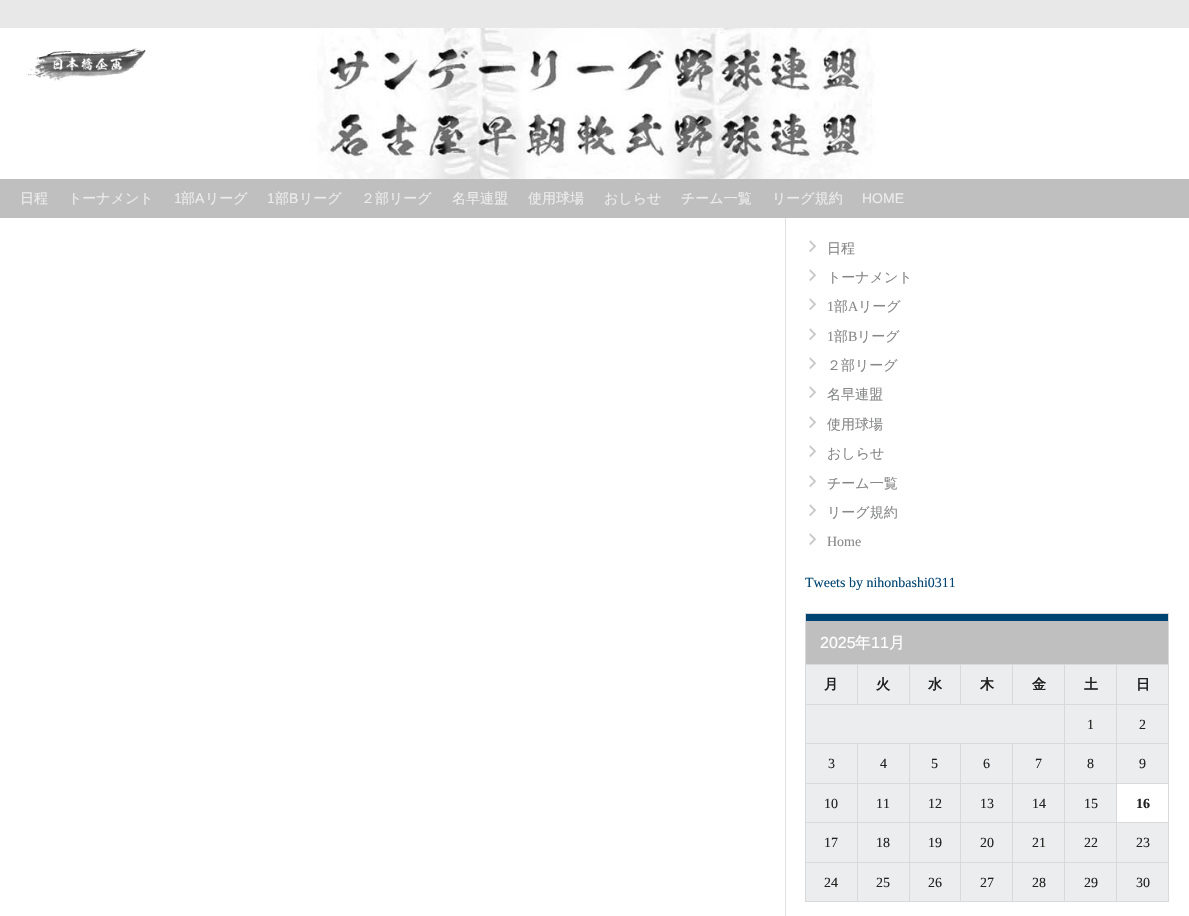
void draw(SkCanvas* canvas) {
  SkPaint paint;
  paint.setAntiAlias(true);
  auto face = [&](const char* family, int weight, float size, bool italic = false) {
    SkFontStyle style(weight, SkFontStyle::kNormal_Width,
      italic ? SkFontStyle::kItalic_Slant : SkFontStyle::kUpright_Slant);
    SkFont result(fontMgr->matchFamilyStyle(family, style), size);
    result.setSubpixel(true);
    return result;
  };
  auto paste = [&](const char* path, float x, float y, float w, float h) {
    auto image = SkImages::DeferredFromEncodedData(SkData::MakeFromFileName(path));
    canvas->drawImageRect(image, SkRect::MakeXYWH(x, y, w, h), SkSamplingOptions());
  };
  canvas->clear(0xffe8e8e8);
  paste("img/1.png", 0, 28, 1189, 151);
  paste("img/2.png", 28, 48, 118, 34);
  {
    const struct { float x, y, w, h; SkColor color; } items[] = {
      {0, 179, 1189, 39, 0xffbfbfbf},
      {0, 218, 1189, 698, 0xffffffff},
      {785, 218, 1, 698, 0xffe0e0e0},
    };
    for (auto [x, y, w, h, color] : items) {
      paint.setColor(color);
      canvas->drawRect(SkRect::MakeXYWH(x, y, w, h), paint);
    }
  }
  paste("img/3.png", 809, 240, 7, 13);
  paste("img/3.png", 809, 269, 7, 13);
  paste("img/3.png", 809, 298, 7, 13);
  paste("img/3.png", 809, 328, 7, 13);
  paste("img/3.png", 809, 357, 7, 13);
  paste("img/3.png", 809, 386, 7, 13);
  paste("img/3.png", 809, 416, 7, 13);
  paste("img/3.png", 809, 445, 7, 13);
  paste("img/3.png", 809, 475, 7, 13);
  paste("img/3.png", 809, 504, 7, 13);
  paste("img/3.png", 809, 533, 7, 13);
  {
    const struct { float x, y, w, h; SkColor color; } items[] = {
      {806, 665, 362, 236, 0xffecedee},
      {805, 613, 364, 1, 0xffd8d9da},
      {805, 614, 364, 7, 0xff004472},
      {1168, 613, 1, 289, 0xffd8d9da},
      {805, 901, 364, 1, 0xffd8d9da},
      {805, 613, 1, 289, 0xffd8d9da},
      {806, 621, 362, 43, 0xffbfbfbf},
      {1116, 664, 53, 1, 0xffd8d9da},
      {1116, 704, 53, 1, 0xffd8d9da},
      {1116, 743, 53, 1, 0xffd8d9da},
      {1116, 783, 53, 1, 0xffd8d9da},
      {1116, 822, 53, 1, 0xffd8d9da},
      {1116, 862, 53, 1, 0xffd8d9da},
      {1116, 862, 1, 40, 0xffd8d9da},
      {1064, 862, 53, 1, 0xffd8d9da},
      {1116, 822, 1, 41, 0xffd8d9da},
      {1064, 822, 53, 1, 0xffd8d9da},
      {1116, 783, 1, 40, 0xffd8d9da},
      {1064, 783, 53, 1, 0xffd8d9da},
      {1116, 743, 1, 41, 0xffd8d9da},
      {1064, 743, 53, 1, 0xffd8d9da},
      {1116, 704, 1, 40, 0xffd8d9da},
      {1064, 704, 53, 1, 0xffd8d9da},
      {1116, 664, 1, 41, 0xffd8d9da},
      {1064, 664, 53, 1, 0xffd8d9da},
      {1064, 862, 1, 40, 0xffd8d9da},
      {1012, 862, 53, 1, 0xffd8d9da},
      {1064, 822, 1, 41, 0xffd8d9da},
      {1012, 822, 53, 1, 0xffd8d9da},
      {1064, 783, 1, 40, 0xffd8d9da},
      {1012, 783, 53, 1, 0xffd8d9da},
      {1064, 743, 1, 41, 0xffd8d9da},
      {1012, 743, 53, 1, 0xffd8d9da},
      {1064, 704, 1, 40, 0xffd8d9da},
      {805, 704, 260, 1, 0xffd8d9da},
      {1064, 664, 1, 41, 0xffd8d9da},
      {1012, 664, 53, 1, 0xffd8d9da},
      {1012, 664, 1, 41, 0xffd8d9da},
      {960, 664, 53, 1, 0xffd8d9da},
      {960, 664, 1, 41, 0xffd8d9da},
      {909, 664, 52, 1, 0xffd8d9da},
      {909, 664, 1, 41, 0xffd8d9da},
      {857, 664, 53, 1, 0xffd8d9da},
      {857, 664, 1, 41, 0xffd8d9da},
      {805, 664, 53, 1, 0xffd8d9da},
      {1012, 862, 1, 40, 0xffd8d9da},
      {960, 862, 53, 1, 0xffd8d9da},
      {1012, 822, 1, 41, 0xffd8d9da},
      {960, 822, 53, 1, 0xffd8d9da},
      {1012, 783, 1, 40, 0xffd8d9da},
      {960, 783, 53, 1, 0xffd8d9da},
      {1012, 743, 1, 41, 0xffd8d9da},
      {960, 743, 53, 1, 0xffd8d9da},
      {960, 862, 1, 40, 0xffd8d9da},
      {909, 862, 52, 1, 0xffd8d9da},
      {960, 822, 1, 41, 0xffd8d9da},
      {909, 822, 52, 1, 0xffd8d9da},
      {960, 783, 1, 40, 0xffd8d9da},
      {909, 783, 52, 1, 0xffd8d9da},
      {960, 743, 1, 41, 0xffd8d9da},
      {909, 743, 52, 1, 0xffd8d9da},
      {909, 862, 1, 40, 0xffd8d9da},
      {857, 862, 53, 1, 0xffd8d9da},
      {909, 822, 1, 41, 0xffd8d9da},
      {857, 822, 53, 1, 0xffd8d9da},
      {909, 783, 1, 40, 0xffd8d9da},
      {857, 783, 53, 1, 0xffd8d9da},
      {909, 743, 1, 41, 0xffd8d9da},
      {857, 743, 53, 1, 0xffd8d9da},
      {857, 862, 1, 40, 0xffd8d9da},
      {805, 862, 53, 1, 0xffd8d9da},
      {857, 822, 1, 41, 0xffd8d9da},
      {805, 822, 53, 1, 0xffd8d9da},
      {857, 783, 1, 40, 0xffd8d9da},
      {805, 783, 53, 1, 0xffd8d9da},
      {857, 743, 1, 41, 0xffd8d9da},
      {805, 743, 53, 1, 0xffd8d9da},
      {1117, 784, 51, 38, 0xffffffff},
    };
    for (auto [x, y, w, h, color] : items) {
      paint.setColor(color);
      canvas->drawRect(SkRect::MakeXYWH(x, y, w, h), paint);
    }
  }
  auto f0 = face("WenQuanYi Zen Hei", 500, 14);
  paint.setColor(0xffececec);
  canvas->drawString("日程", 20, 203, f0, paint);
  canvas->drawString("トーナメント", 68, 203, f0, paint);
  auto f1 = face("Liberation Sans", 400, 14);
  canvas->drawString("1", 174, 203, f1, paint);
  canvas->drawString("部", 181, 203, f0, paint);
  canvas->drawString("A", 195, 203, f1, paint);
  canvas->drawString("リーグ", 205, 203, f0, paint);
  canvas->drawString("1", 267, 203, f1, paint);
  canvas->drawString("部", 275, 203, f0, paint);
  canvas->drawString("B", 289, 203, f1, paint);
  {
    const struct { const char* s; float x, y; } items[] = {
      {"リーグ", 299, 203},
      {"２部リーグ", 361, 203},
      {"名早連盟", 452, 203},
      {"使用球場", 528, 203},
      {"おしらせ", 604, 203},
      {"チーム一覧", 681, 203},
      {"リーグ規約", 772, 203},
    };
    for (auto [s, x, y] : items) {
      canvas->drawString(s, x, y, f0, paint);
    }
  }
  canvas->drawString("HOME", 862, 203, f1, paint);
  paint.setColor(0xff868787);
  canvas->drawString("日程", 827, 253, f0, paint);
  canvas->drawString("トーナメント", 827, 282, f0, paint);
  auto f2 = face("Liberation Serif", 400, 14);
  canvas->drawString("1", 827, 311, f2, paint);
  canvas->drawString("部", 834, 311, f0, paint);
  canvas->drawString("A", 848, 311, f2, paint);
  canvas->drawString("リーグ", 858, 311, f0, paint);
  canvas->drawString("1", 827, 341, f2, paint);
  canvas->drawString("部", 834, 341, f0, paint);
  canvas->drawString("B", 848, 341, f2, paint);
  {
    const struct { const char* s; float x, y; } items[] = {
      {"リーグ", 857, 341},
      {"２部リーグ", 827, 370},
      {"名早連盟", 827, 399},
      {"使用球場", 827, 429},
      {"おしらせ", 827, 458},
      {"チーム一覧", 827, 488},
      {"リーグ規約", 827, 517},
    };
    for (auto [s, x, y] : items) {
      canvas->drawString(s, x, y, f0, paint);
    }
  }
  canvas->drawString("Home", 827, 546, f2, paint);
  paint.setColor(0xff004472);
  canvas->drawString("Tweets by nihonbashi0311", 805, 587, f2, paint);
  auto f3 = face("Liberation Sans", 400, 16);
  paint.setColor(0xffffffff);
  canvas->drawString("2025", 820, 648, f3, paint);
  auto f4 = face("WenQuanYi Zen Hei", 500, 16);
  canvas->drawString("年", 855, 648, f4, paint);
  canvas->drawString("11", 871, 648, f3, paint);
  canvas->drawString("月", 889, 648, f4, paint);
  auto f5 = face("WenQuanYi Zen Hei", 700, 14);
  paint.setColor(0xff212121);
  {
    const struct { const char* s; float x, y; } items[] = {
      {"月", 824, 689},
      {"火", 876, 689},
      {"水", 928, 689},
      {"木", 980, 689},
      {"金", 1032, 689},
      {"土", 1084, 689},
      {"日", 1136, 689},
    };
    for (auto [s, x, y] : items) {
      canvas->drawString(s, x, y, f5, paint);
    }
  }
  {
    const struct { const char* s; float x, y; } items[] = {
      {"1", 1087, 729},
      {"2", 1139, 729},
      {"3", 828, 768},
      {"4", 880, 768},
      {"5", 931, 768},
      {"6", 983, 768},
      {"7", 1035, 768},
      {"8", 1087, 768},
      {"9", 1139, 768},
      {"10", 824, 808},
      {"11", 876, 808},
      {"12", 928, 808},
      {"13", 980, 808},
      {"14", 1032, 808},
      {"15", 1084, 808},
    };
    for (auto [s, x, y] : items) {
      canvas->drawString(s, x, y, f2, paint);
    }
  }
  auto f6 = face("Liberation Serif", 700, 14);
  canvas->drawString("16", 1136, 808, f6, paint);
  {
    const struct { const char* s; float x, y; } items[] = {
      {"17", 824, 847},
      {"18", 876, 847},
      {"19", 928, 847},
      {"20", 980, 847},
      {"21", 1032, 847},
      {"22", 1084, 847},
      {"23", 1136, 847},
      {"24", 824, 887},
      {"25", 876, 887},
      {"26", 928, 887},
      {"27", 980, 887},
      {"28", 1032, 887},
      {"29", 1084, 887},
      {"30", 1136, 887},
    };
    for (auto [s, x, y] : items) {
      canvas->drawString(s, x, y, f2, paint);
    }
  }
}
